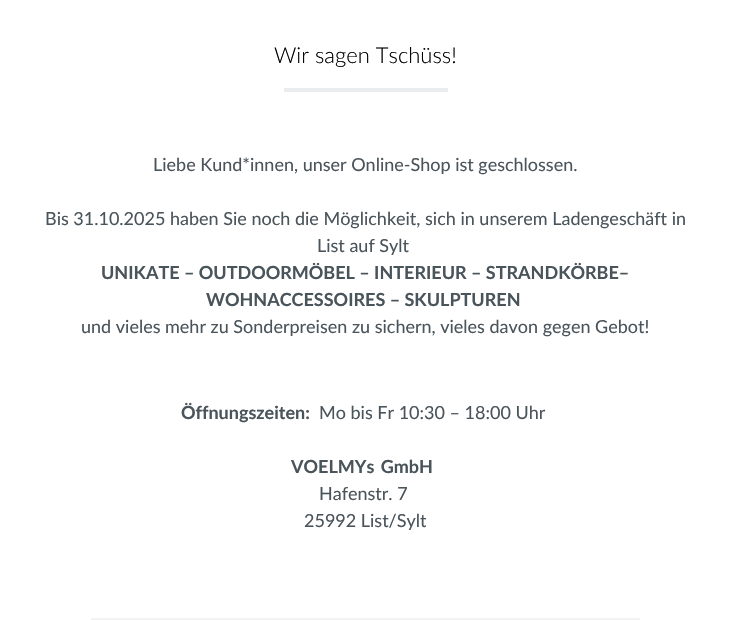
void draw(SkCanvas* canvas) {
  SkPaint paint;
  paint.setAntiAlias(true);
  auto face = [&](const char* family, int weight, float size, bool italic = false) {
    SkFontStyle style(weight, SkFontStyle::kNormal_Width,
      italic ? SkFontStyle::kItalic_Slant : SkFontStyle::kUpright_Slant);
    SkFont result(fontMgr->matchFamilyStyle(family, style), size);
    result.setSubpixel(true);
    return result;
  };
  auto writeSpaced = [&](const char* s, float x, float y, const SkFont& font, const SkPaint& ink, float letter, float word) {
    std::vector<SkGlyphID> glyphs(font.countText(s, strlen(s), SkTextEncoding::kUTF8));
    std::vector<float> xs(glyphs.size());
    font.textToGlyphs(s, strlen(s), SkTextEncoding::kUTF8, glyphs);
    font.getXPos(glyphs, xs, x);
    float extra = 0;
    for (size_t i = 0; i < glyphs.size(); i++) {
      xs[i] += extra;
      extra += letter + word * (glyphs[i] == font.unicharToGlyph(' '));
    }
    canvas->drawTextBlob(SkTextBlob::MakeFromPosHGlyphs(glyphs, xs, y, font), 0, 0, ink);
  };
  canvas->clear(0xffffffff);
  paint.setColor(0xffe9edf0);
  canvas->drawRect(SkRect::MakeXYWH(284, 88, 164, 4), paint);
  paint.setColor(0xfff3f3f3);
  canvas->drawRect(SkRect::MakeXYWH(91, 618, 549, 2), paint);
  auto f0 = face("Lato", 300, 22);
  paint.setColor(0xff000000);
  canvas->drawString("Wir sagen Tschüss!", 274, 63, f0, paint);
  auto f1 = face("Lato", 400, 18);
  paint.setColor(0xff4a545b);
  {
    const struct { const char* s; float x, y; } items[] = {
      {"Liebe Kund*innen, unser Online-Shop ist geschlossen.", 153, 171},
      {"Bis 31.10.2025 haben Sie noch die Möglichkeit, sich in unserem Ladengeschäft in", 45, 225},
      {"List auf Sylt", 317, 252},
    };
    for (auto [s, x, y] : items) {
      canvas->drawString(s, x, y, f1, paint);
    }
  }
  auto f2 = face("Lato", 700, 18);
  canvas->drawString("UNIKATE – OUTDOORMÖBEL – INTERIEUR – STRANDKÖRBE–", 101, 279, f2, paint);
  canvas->drawString("WOHNACCESSOIRES – SKULPTUREN", 206, 306, f2, paint);
  canvas->drawString("und vieles mehr zu Sonderpreisen zu sichern, vieles davon gegen Gebot!", 81, 333, f1, paint);
  canvas->drawString("Öffnungszeiten:", 181, 419, f2, paint);
  canvas->drawString("Mo bis Fr 10:30 – 18:00 Uhr", 319, 419, f1, paint);
  writeSpaced("VOELMYs GmbH", 291, 473, f2, paint, 0, 2);
  canvas->drawString("Hafenstr. 7", 319, 500, f1, paint);
  canvas->drawString("25992 List/Sylt", 304, 527, f1, paint);
}
